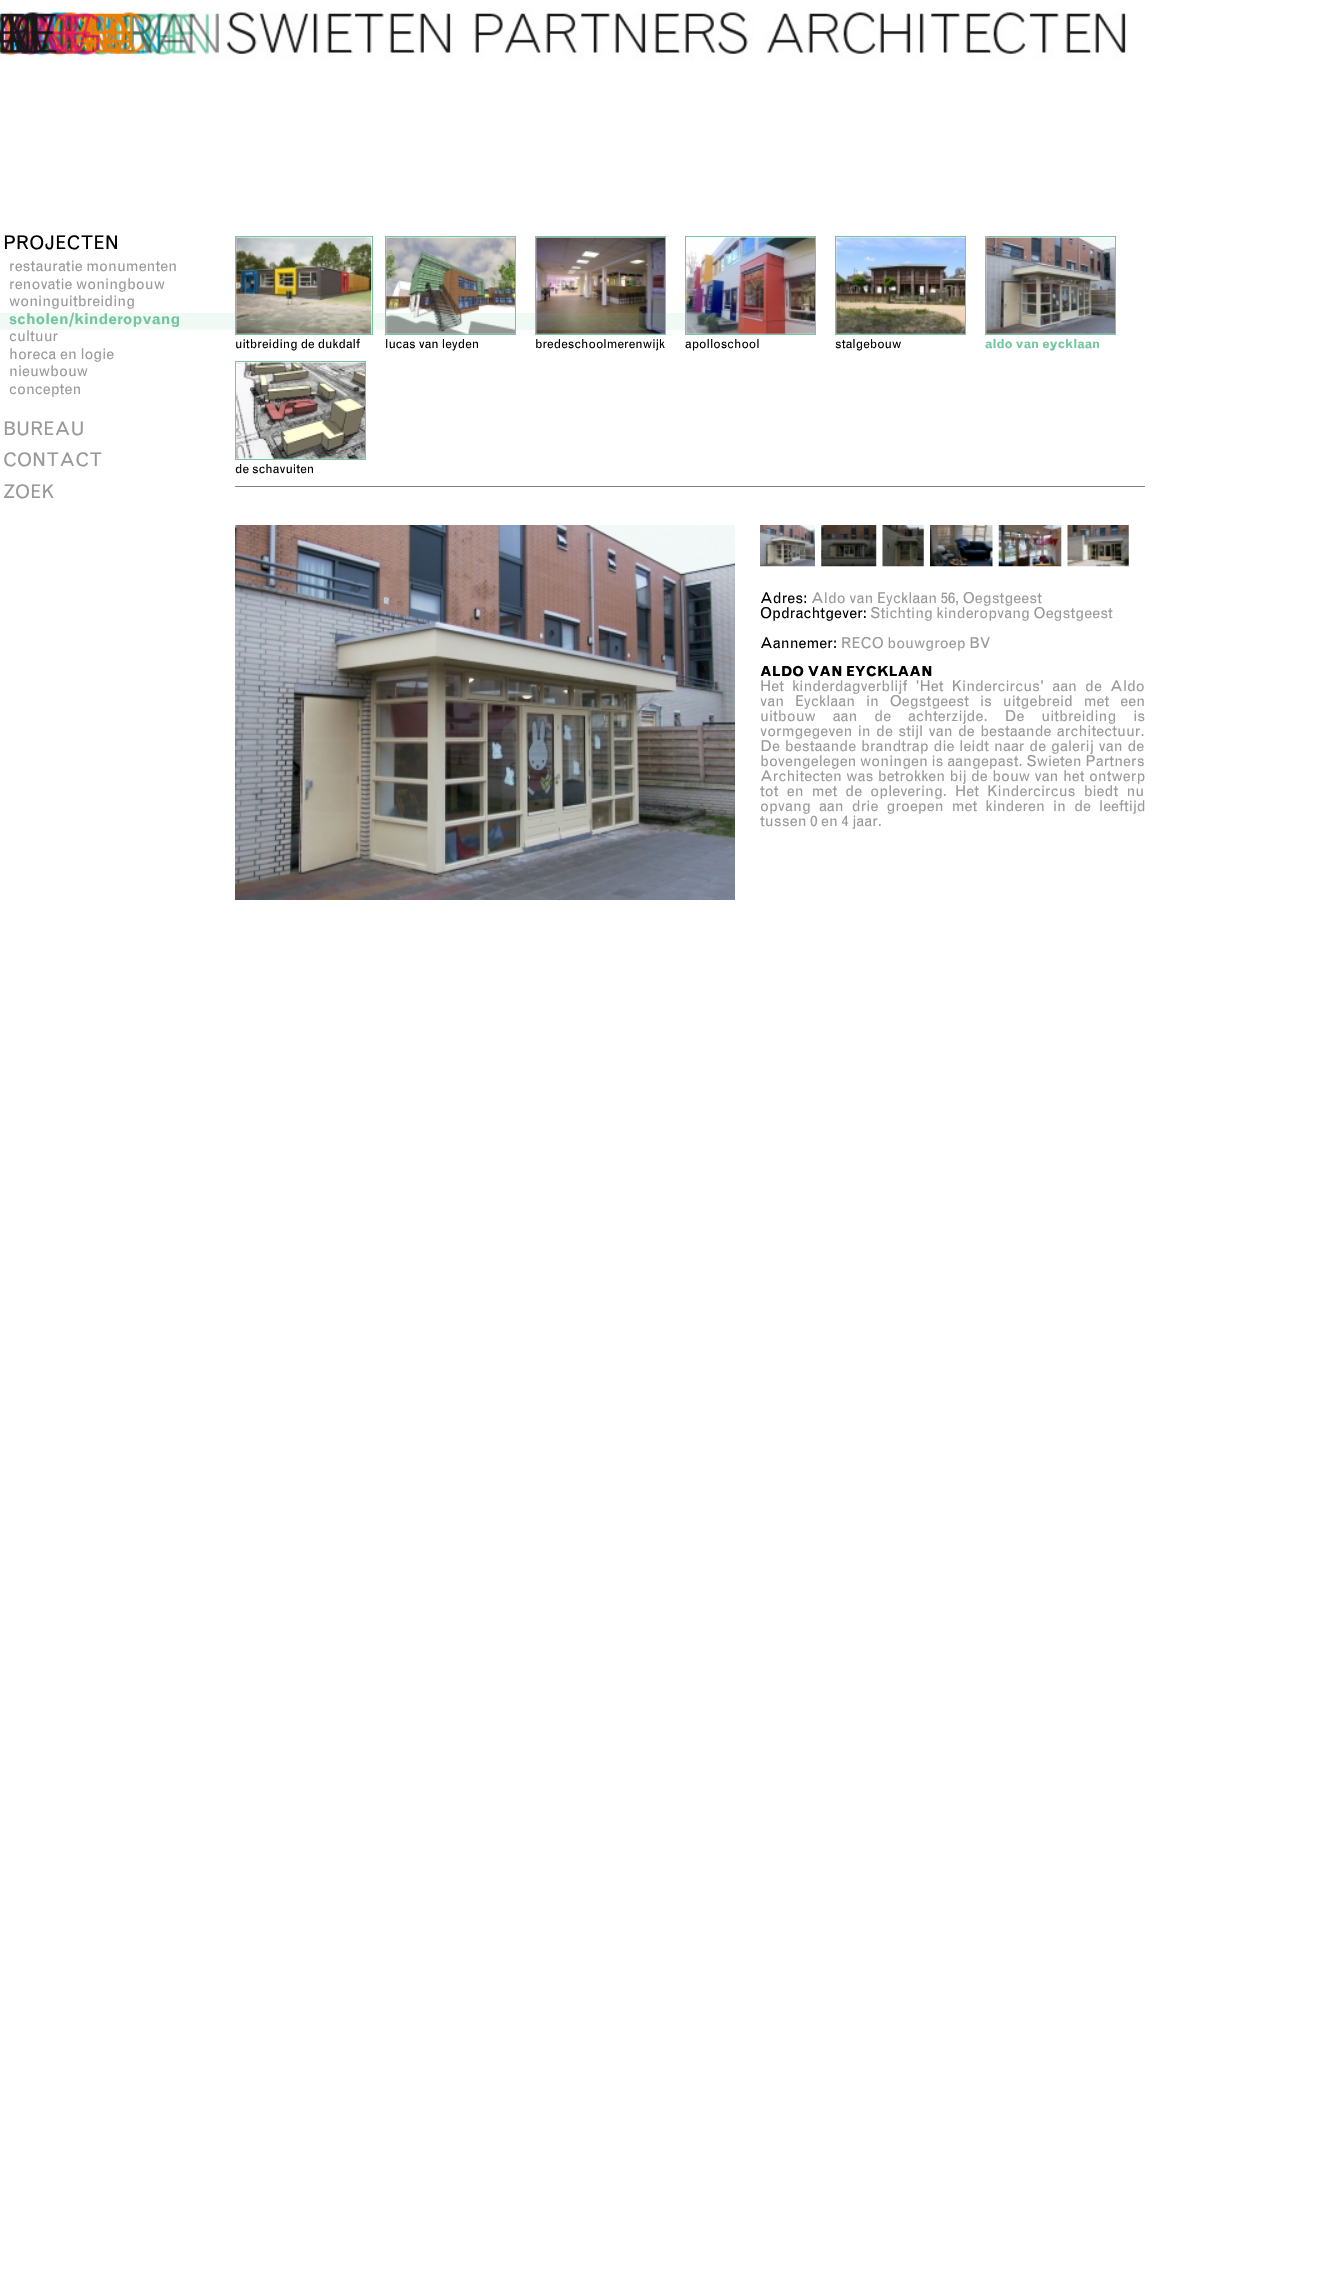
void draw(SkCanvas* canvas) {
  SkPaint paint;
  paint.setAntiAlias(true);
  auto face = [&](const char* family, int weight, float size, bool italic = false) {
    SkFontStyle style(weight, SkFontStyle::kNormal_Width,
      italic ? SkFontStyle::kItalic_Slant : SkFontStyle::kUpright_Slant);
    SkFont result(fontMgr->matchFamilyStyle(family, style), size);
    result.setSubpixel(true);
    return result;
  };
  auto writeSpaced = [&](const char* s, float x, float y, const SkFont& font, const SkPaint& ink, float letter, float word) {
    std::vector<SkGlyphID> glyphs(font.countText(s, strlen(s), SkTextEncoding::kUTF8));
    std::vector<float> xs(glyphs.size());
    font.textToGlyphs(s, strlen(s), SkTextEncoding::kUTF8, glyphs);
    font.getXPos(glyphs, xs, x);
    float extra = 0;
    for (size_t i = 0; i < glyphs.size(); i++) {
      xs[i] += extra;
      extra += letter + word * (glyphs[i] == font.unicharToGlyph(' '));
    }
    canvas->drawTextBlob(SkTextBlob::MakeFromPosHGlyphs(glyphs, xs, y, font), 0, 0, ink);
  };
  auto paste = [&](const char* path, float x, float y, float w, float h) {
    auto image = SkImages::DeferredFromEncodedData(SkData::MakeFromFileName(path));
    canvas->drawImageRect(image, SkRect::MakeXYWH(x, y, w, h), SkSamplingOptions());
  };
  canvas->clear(0xffffffff);
  paste("img/1.png", 0, 10, 1126, 50);
  paint.setStroke(true);
  paint.setStrokeWidth(1);
  paint.setColor(0xff73c6a1);
  canvas->drawRect(SkRect::MakeXYWH(235.5f, 236.5f, 137, 98), paint);
  paste("img/2.png", 236, 237, 136, 97);
  canvas->drawRect(SkRect::MakeXYWH(385.5f, 236.5f, 130, 98), paint);
  paste("img/3.png", 386, 237, 129, 97);
  canvas->drawRect(SkRect::MakeXYWH(535.5f, 236.5f, 130, 98), paint);
  paste("img/4.png", 536, 237, 129, 97);
  canvas->drawRect(SkRect::MakeXYWH(685.5f, 236.5f, 130, 98), paint);
  paste("img/5.png", 686, 237, 129, 97);
  paint.setStroke(false);
  paint.setColor(0x1a73c6a1);
  canvas->drawRect(SkRect::MakeXYWH(0, 313, 744, 17), paint);
  paint.setColor(0xff808080);
  canvas->drawRect(SkRect::MakeXYWH(235, 486, 910, 1), paint);
  paint.setStroke(true);
  paint.setColor(0xff73c6a1);
  canvas->drawRect(SkRect::MakeXYWH(835.5f, 236.5f, 130, 98), paint);
  paste("img/6.png", 836, 237, 129, 97);
  canvas->drawRect(SkRect::MakeXYWH(985.5f, 236.5f, 130, 98), paint);
  paste("img/7.png", 986, 237, 129, 97);
  canvas->drawRect(SkRect::MakeXYWH(235.5f, 361.5f, 130, 98), paint);
  paste("img/8.png", 236, 362, 129, 97);
  paste("img/9.png", 235, 525, 500, 375);
  paste("img/10.png", 760, 525, 55, 42);
  paste("img/11.png", 821, 525, 56, 42);
  paste("img/12.png", 882, 525, 42, 42);
  paste("img/13.png", 930, 525, 63, 42);
  paste("img/14.png", 998, 525, 64, 42);
  paste("img/15.png", 1067, 525, 62, 42);
  auto f0 = face("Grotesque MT", 400, 18.75f);
  paint.setStroke(false);
  paint.setColor(0xff000000);
  canvas->drawString("PROJECTEN", 3, 249, f0, paint);
  auto f1 = face("Grotesque MT", 400, 15);
  paint.setColor(0xff999999);
  {
    const struct { const char* s; float x, y; } items[] = {
      {"restauratie monumenten", 9, 271},
      {"renovatie woningbouw", 9, 289},
      {"woninguitbreiding", 9, 306},
    };
    for (auto [s, x, y] : items) {
      canvas->drawString(s, x, y, f1, paint);
    }
  }
  auto f2 = face("Grotesque MT", 700, 15);
  paint.setColor(0xff73c6a1);
  canvas->drawString("scholen/kinderopvang", 9, 324, f2, paint);
  paint.setColor(0xff999999);
  {
    const struct { const char* s; float x, y; } items[] = {
      {"cultuur", 9, 341},
      {"horeca en logie", 9, 359},
      {"nieuwbouw", 9, 376},
      {"concepten", 9, 394},
    };
    for (auto [s, x, y] : items) {
      canvas->drawString(s, x, y, f1, paint);
    }
  }
  {
    const struct { const char* s; float x, y; } items[] = {
      {"BUREAU", 3, 435},
      {"CONTACT", 3, 466},
      {"ZOEK", 3, 498},
    };
    for (auto [s, x, y] : items) {
      canvas->drawString(s, x, y, f0, paint);
    }
  }
  auto f3 = face("Grotesque MT", 400, 12.5f);
  paint.setColor(0xff000000);
  {
    const struct { const char* s; float x, y; } items[] = {
      {"uitbreiding de dukdalf", 235, 348},
      {"lucas van leyden", 385, 348},
      {"bredeschoolmerenwijk", 535, 348},
      {"apolloschool", 685, 348},
      {"stalgebouw", 835, 348},
    };
    for (auto [s, x, y] : items) {
      canvas->drawString(s, x, y, f3, paint);
    }
  }
  auto f4 = face("Grotesque MT", 700, 12.5f);
  paint.setColor(0xff73c6a1);
  canvas->drawString("aldo van eycklaan", 985, 348, f4, paint);
  paint.setColor(0xff000000);
  canvas->drawString("de schavuiten", 235, 473, f3, paint);
  canvas->drawString("Adres:", 760, 603, f1, paint);
  paint.setColor(0xff999999);
  canvas->drawString("Aldo van Eycklaan 56, Oegstgeest", 811, 603, f1, paint);
  paint.setColor(0xff000000);
  canvas->drawString("Opdrachtgever:", 760, 618, f1, paint);
  paint.setColor(0xff999999);
  canvas->drawString("Stichting kinderopvang Oegstgeest", 870, 618, f1, paint);
  paint.setColor(0xff000000);
  canvas->drawString("Aannemer:", 760, 648, f1, paint);
  paint.setColor(0xff999999);
  canvas->drawString("RECO bouwgroep BV", 841, 648, f1, paint);
  auto f5 = face("Grotesque MT", 700, 13.75f);
  paint.setColor(0xff000000);
  canvas->drawString("ALDO VAN EYCKLAAN", 760, 676, f5, paint);
  paint.setColor(0xff999999);
  writeSpaced("Het kinderdagverblijf 'Het Kindercircus' aan de Aldo", 760, 691, f1, paint, 0, 4.5f);
  writeSpaced("van Eycklaan in Oegstgeest is uitgebreid met een", 760, 706, f1, paint, 0, 7.25f);
  writeSpaced("uitbouw aan de achterzijde. De uitbreiding is", 760, 721, f1, paint, 0, 13.25f);
  writeSpaced("vormgegeven in de stijl van de bestaande architectuur.", 760, 736, f1, paint, 0, 1.75f);
  writeSpaced("De bestaande brandtrap die leidt naar de galerij van de", 760, 751, f1, paint, 0, 1.25f);
  canvas->drawString("bovengelegen woningen is aangepast. Swieten Partners", 760, 766, f1, paint);
  writeSpaced("Architecten was betrokken bij de bouw van het ontwerp", 760, 781, f1, paint, 0, 0.75f);
  writeSpaced("tot en met de oplevering. Het Kindercircus biedt nu", 760, 796, f1, paint, 0, 4.5f);
  writeSpaced("opvang aan drie groepen met kinderen in de leeftijd", 760, 811, f1, paint, 0, 4.5f);
  canvas->drawString("tussen 0 en 4 jaar.", 760, 826, f1, paint);
}
